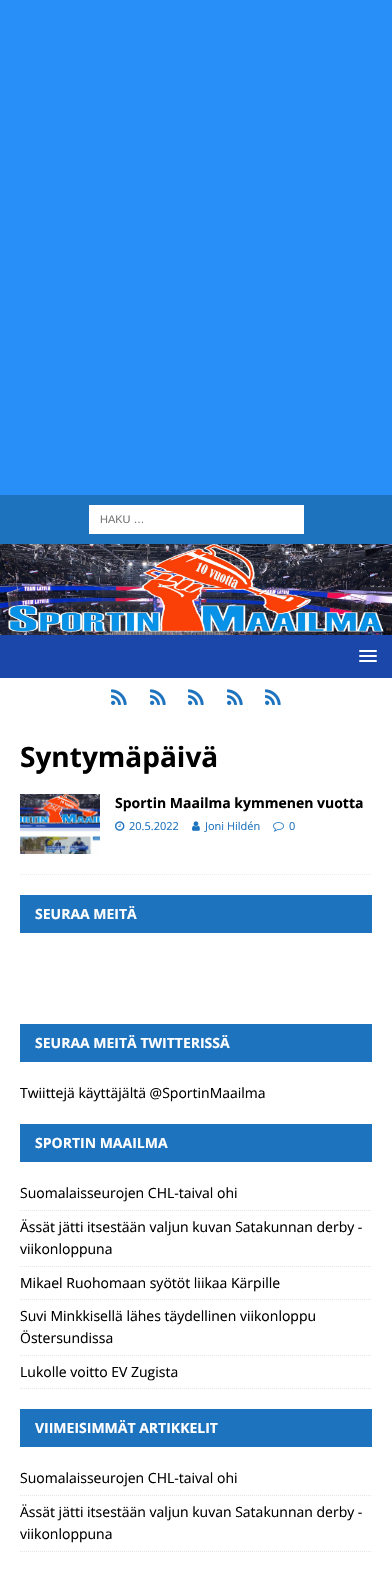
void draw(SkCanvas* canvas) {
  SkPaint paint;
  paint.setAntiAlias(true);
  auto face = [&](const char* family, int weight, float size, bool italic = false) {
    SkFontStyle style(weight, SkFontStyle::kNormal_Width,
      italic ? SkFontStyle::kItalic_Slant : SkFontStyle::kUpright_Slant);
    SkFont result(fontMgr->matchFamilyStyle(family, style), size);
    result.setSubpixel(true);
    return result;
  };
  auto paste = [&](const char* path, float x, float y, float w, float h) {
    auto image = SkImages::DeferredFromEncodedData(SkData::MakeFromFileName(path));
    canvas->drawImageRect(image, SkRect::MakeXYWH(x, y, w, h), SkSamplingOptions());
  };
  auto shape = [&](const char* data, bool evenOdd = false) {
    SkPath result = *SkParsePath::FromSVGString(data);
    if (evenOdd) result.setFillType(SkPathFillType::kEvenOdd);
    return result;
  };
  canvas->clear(0xff278ff7);
  paint.setColor(0xff1e73be);
  canvas->drawRect(SkRect::MakeXYWH(0, 495, 392, 49), paint);
  paint.setColor(0xffffffff);
  canvas->drawRect(SkRect::MakeXYWH(89, 505, 215, 29), paint);
  paste("img/1.png", 0, 544, 392, 91);
  paint.setColor(0xff1b46aa);
  canvas->drawRect(SkRect::MakeXYWH(0, 635, 392, 43), paint);
  paint.setColor(0xffffffff);
  canvas->drawRoundRect(SkRect::MakeXYWH(359, 650, 18, 2), 1, 1, paint);
  canvas->drawRoundRect(SkRect::MakeXYWH(359, 655, 18, 2), 1, 1, paint);
  canvas->drawRoundRect(SkRect::MakeXYWH(359, 660, 18, 2), 1, 1, paint);
  canvas->drawRect(SkRect::MakeXYWH(0, 678, 392, 891), paint);
  paste("img/2.png", 111, 689, 16, 16);
  paste("img/2.png", 150, 689, 16, 16);
  paste("img/2.png", 188, 689, 16, 16);
  paste("img/2.png", 227, 689, 16, 16);
  paste("img/2.png", 265, 689, 16, 16);
  paint.setStroke(true);
  paint.setStrokeWidth(1);
  paint.setColor(0xffebebeb);
  paint.setPathEffect(SkDashPathEffect::Make({{1, 1}}, 0));
  canvas->drawPath(shape("M20 874.5H372"), paint);
  paint.setPathEffect(nullptr);
  paste("img/3.png", 20, 794, 80, 60);
  paste("img/4.png", 115, 821, 10, 10);
  paste("img/5.png", 192, 821, 8, 10);
  paste("img/6.png", 273, 822, 11, 10);
  paint.setStroke(false);
  {
    const struct { float x, y, w, h; SkColor color; } items[] = {
      {20, 895, 352, 38, 0xff1e73be},
      {20, 1024, 352, 38, 0xff1e73be},
      {20, 1124, 352, 38, 0xff1e73be},
    };
    for (auto [x, y, w, h, color] : items) {
      paint.setColor(color);
      canvas->drawRect(SkRect::MakeXYWH(x, y, w, h), paint);
    }
  }
  paint.setStroke(true);
  paint.setColor(0xffe5e5e5);
  paint.setPathEffect(SkDashPathEffect::Make({{1, 1}}, 0));
  canvas->drawPath(shape("M20 1210.5H372"), paint);
  paint.setPathEffect(nullptr);
  paint.setPathEffect(SkDashPathEffect::Make({{1, 1}}, 0));
  canvas->drawPath(shape("M20 1266.5H372"), paint);
  paint.setPathEffect(nullptr);
  paint.setPathEffect(SkDashPathEffect::Make({{1, 1}}, 0));
  canvas->drawPath(shape("M20 1299.5H372"), paint);
  paint.setPathEffect(nullptr);
  paint.setPathEffect(SkDashPathEffect::Make({{1, 1}}, 0));
  canvas->drawPath(shape("M20 1355.5H372"), paint);
  paint.setPathEffect(nullptr);
  paint.setPathEffect(SkDashPathEffect::Make({{1, 1}}, 0));
  canvas->drawPath(shape("M20 1388.5H372"), paint);
  paint.setPathEffect(nullptr);
  paint.setStroke(false);
  paint.setColor(0xff1e73be);
  canvas->drawRect(SkRect::MakeXYWH(20, 1409, 352, 38), paint);
  paint.setStroke(true);
  paint.setColor(0xffe5e5e5);
  paint.setPathEffect(SkDashPathEffect::Make({{1, 1}}, 0));
  canvas->drawPath(shape("M20 1495.5H372"), paint);
  paint.setPathEffect(nullptr);
  paint.setPathEffect(SkDashPathEffect::Make({{1, 1}}, 0));
  canvas->drawPath(shape("M20 1551.5H372"), paint);
  paint.setPathEffect(nullptr);
  auto f0 = face("Liberation Sans", 400, 11);
  paint.setStroke(false);
  paint.setColor(0xff757575);
  canvas->drawString("HAKU …", 100, 523, f0, paint);
  auto f1 = face("Open Sans", 700, 28);
  paint.setColor(0xff000000);
  canvas->drawString("Syntymäpäivä", 20, 767, f1, paint);
  auto f2 = face("Open Sans", 700, 14);
  canvas->drawString("Sportin Maailma kymmenen vuotta", 115, 808, f2, paint);
  auto f3 = face("Open Sans", 400, 11);
  paint.setColor(0xff1e73be);
  {
    const struct { const char* s; float x, y; } items[] = {
      {"20.5.2022", 129, 830},
      {"Joni Hildén", 205, 830},
      {"0", 289, 830},
    };
    for (auto [s, x, y] : items) {
      canvas->drawString(s, x, y, f3, paint);
    }
  }
  paint.setColor(0xffffffff);
  canvas->drawString("SEURAA MEITÄ", 35, 919, f2, paint);
  canvas->drawString("SEURAA MEITÄ TWITTERISSÄ", 35, 1048, f2, paint);
  auto f4 = face("Open Sans", 400, 14);
  paint.setColor(0xff000000);
  canvas->drawString("Twiittejä käyttäjältä @SportinMaailma", 20, 1098, f4, paint);
  paint.setColor(0xffffffff);
  canvas->drawString("SPORTIN MAAILMA", 35, 1148, f2, paint);
  paint.setColor(0xff000000);
  {
    const struct { const char* s; float x, y; } items[] = {
      {"Suomalaisseurojen CHL-taival ohi", 20, 1198},
      {"Ässät jätti itsestään valjun kuvan Satakunnan derby -", 20, 1232},
      {"viikonloppuna", 20, 1254},
      {"Mikael Ruohomaan syötöt liikaa Kärpille", 20, 1288},
      {"Suvi Minkkisellä lähes täydellinen viikonloppu", 20, 1321},
      {"Östersundissa", 20, 1343},
      {"Lukolle voitto EV Zugista", 20, 1377},
    };
    for (auto [s, x, y] : items) {
      canvas->drawString(s, x, y, f4, paint);
    }
  }
  paint.setColor(0xffffffff);
  canvas->drawString("VIIMEISIMMÄT ARTIKKELIT", 35, 1433, f2, paint);
  paint.setColor(0xff000000);
  {
    const struct { const char* s; float x, y; } items[] = {
      {"Suomalaisseurojen CHL-taival ohi", 20, 1483},
      {"Ässät jätti itsestään valjun kuvan Satakunnan derby -", 20, 1517},
      {"viikonloppuna", 20, 1539},
    };
    for (auto [s, x, y] : items) {
      canvas->drawString(s, x, y, f4, paint);
    }
  }
}
